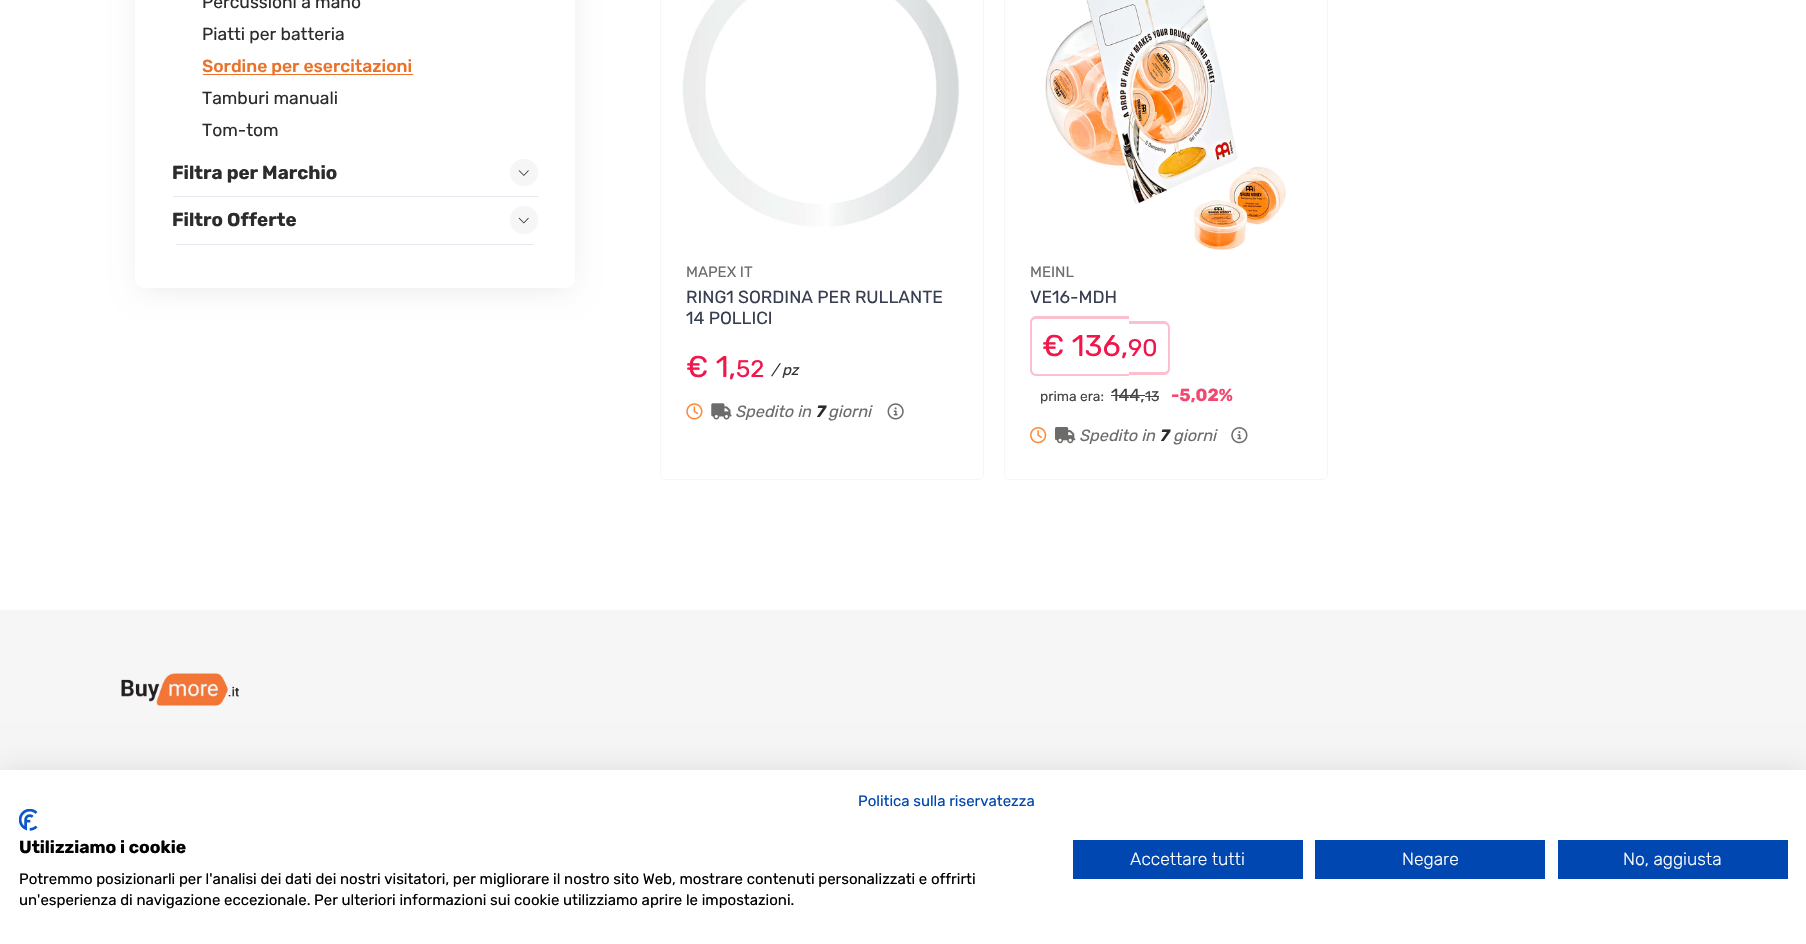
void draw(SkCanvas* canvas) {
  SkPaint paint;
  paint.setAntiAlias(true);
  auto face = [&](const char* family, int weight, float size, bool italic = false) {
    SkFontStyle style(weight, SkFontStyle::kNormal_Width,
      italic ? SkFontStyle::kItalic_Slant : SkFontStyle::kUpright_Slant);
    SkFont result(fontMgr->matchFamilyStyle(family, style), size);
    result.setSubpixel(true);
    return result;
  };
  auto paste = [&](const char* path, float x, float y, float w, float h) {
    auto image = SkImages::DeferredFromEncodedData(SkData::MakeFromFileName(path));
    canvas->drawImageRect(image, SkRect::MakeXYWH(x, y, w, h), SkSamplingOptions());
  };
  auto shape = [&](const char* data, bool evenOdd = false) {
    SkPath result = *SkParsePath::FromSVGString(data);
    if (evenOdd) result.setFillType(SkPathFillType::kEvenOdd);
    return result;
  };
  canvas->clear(0xffffffff);
  paint.setColor(0x1a000000);
  paint.setMaskFilter(SkMaskFilter::MakeBlur(kNormal_SkBlurStyle, 15));
  canvas->drawRoundRect(SkRect::MakeXYWH(143, -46, 425, 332), 1, 1, paint);
  paint.setMaskFilter(nullptr);
  paint.setColor(0xffffffff);
  canvas->drawRoundRect(SkRect::MakeXYWH(135, -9, 440, 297), 9, 9, paint);
  paint.setColor(0xffeb7128);
  canvas->drawRect(SkRect::MakeXYWH(203, 74, 210, 1), paint);
  paint.setColor(0xffe3e9ef);
  canvas->drawRect(SkRect::MakeXYWH(173, 196, 365, 1), paint);
  paint.setColor(0xfff6f6f6);
  canvas->drawRoundRect(SkRect::MakeXYWH(510, 159, 28, 27), 13.5f, 13.5f, paint);
  paste("img/1.png", 518, 170, 11, 6);
  paint.setColor(0xffe3e9ef);
  canvas->drawRect(SkRect::MakeXYWH(176, 244, 358, 1), paint);
  paint.setColor(0xfff6f6f6);
  canvas->drawCircle(524, 220, 14, paint);
  paste("img/2.png", 518, 217, 11, 7);
  paint.setStroke(true);
  paint.setStrokeWidth(1);
  canvas->drawRoundRect(SkRect::MakeXYWH(660.5f, -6.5f, 323, 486), 5.5f, 5.5f, paint);
  paste("img/3.png", 682, 0, 278, 227);
  paste("img/4.png", 686, 403, 17, 17);
  paste("img/5.png", 711, 403, 21, 17);
  paste("img/6.png", 887, 403, 17, 17);
  canvas->drawRoundRect(SkRect::MakeXYWH(1004.5f, -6.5f, 323, 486), 5.5f, 5.5f, paint);
  paste("img/7.png", 1045, 0, 241, 250);
  paint.setStroke(false);
  paint.setColor(0xfffbbfcd);
  canvas->drawPath(shape("M1036 316H1129V376H1036C1033 376 1030 373 1030 370V322C1030 319 1033 316 1036 316ZM1036 319H1129V374H1036C1034 374 1032 372 1032 370V322C1032 320 1034 319 1036 319Z", true), paint);
  canvas->drawPath(shape("M1129 321H1164C1167 321 1170 324 1170 328V369C1170 372 1167 375 1164 375H1129ZM1129 324H1164C1166 324 1168 325 1168 328V369C1168 371 1166 372 1164 372H1129Z", true), paint);
  paint.setColor(0xff444444);
  canvas->drawRect(SkRect::MakeXYWH(1111, 395, 34, 1), paint);
  canvas->drawRect(SkRect::MakeXYWH(1145, 396, 14, 1), paint);
  paste("img/8.png", 1030, 427, 17, 17);
  paste("img/9.png", 1055, 427, 21, 17);
  paste("img/10.png", 1231, 427, 17, 17);
  paint.setColor(0xfff6f6f6);
  canvas->drawRect(SkRect::MakeXYWH(0, 610, 1806, 160), paint);
  paste("img/11.png", 121, 673, 118, 33);
  paint.setColor(0x1a000000);
  paint.setMaskFilter(SkMaskFilter::MakeBlur(kNormal_SkBlurStyle, 15));
  canvas->drawRect(SkRect::MakeXYWH(0, 770, 1806, 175), paint);
  paint.setMaskFilter(nullptr);
  paint.setColor(0xffffffff);
  canvas->drawRect(SkRect::MakeXYWH(0, 770, 1806, 174), paint);
  paste("img/12.png", 19, 809, 19, 22);
  {
    const struct { float x, y, w, h; SkColor color; } items[] = {
      {1073, 840, 230, 39, 0xff0047b2},
      {1315, 840, 230, 39, 0xff0047b2},
      {1558, 840, 230, 39, 0xff0047b2},
    };
    for (auto [x, y, w, h, color] : items) {
      paint.setColor(color);
      canvas->drawRect(SkRect::MakeXYWH(x, y, w, h), paint);
    }
  }
  auto f0 = face("Rubik", 400, 17.5f);
  paint.setColor(0xff2c2c2b);
  canvas->drawString("Percussioni a mano", 202, 8, f0, paint);
  canvas->drawString("Piatti per batteria", 202, 40, f0, paint);
  auto f1 = face("Rubik", 500, 17.5f);
  paint.setColor(0xffeb7128);
  canvas->drawString("Sordine per esercitazioni", 202, 72, f1, paint);
  paint.setColor(0xff2c2c2b);
  canvas->drawString("Tamburi manuali", 202, 104, f0, paint);
  canvas->drawString("Tom-tom", 202, 136, f0, paint);
  auto f2 = face("Rubik", 700, 18.75f);
  canvas->drawString("Filtra per Marchio", 172, 179, f2, paint);
  canvas->drawString("Filtro Offerte", 172, 226, f2, paint);
  auto f3 = face("Rubik", 400, 15);
  paint.setColor(0xff6c6c6b);
  canvas->drawString("MAPEX IT", 686, 277, f3, paint);
  paint.setColor(0xff373f50);
  canvas->drawString("RING1 SORDINA PER RULLANTE", 686, 303, f0, paint);
  canvas->drawString("14 POLLICI", 686, 324, f0, paint);
  auto f4 = face("Rubik", 400, 30);
  paint.setColor(0xfff0174b);
  canvas->drawString("€ 1,", 686, 377, f4, paint);
  auto f5 = face("Rubik", 400, 24);
  canvas->drawString("52", 736, 377, f5, paint);
  auto f6 = face("Rubik", 400, 15, true);
  paint.setColor(0xff333333);
  canvas->drawString("/ pz", 771, 375, f6, paint);
  auto f7 = face("Rubik", 400, 16.25f, true);
  paint.setColor(0xff6c6c6b);
  canvas->drawString("Spedito in", 735, 417, f7, paint);
  auto f8 = face("Rubik", 700, 16.25f, true);
  paint.setColor(0xff2c2c2b);
  canvas->drawString("7", 815, 417, f8, paint);
  paint.setColor(0xff6c6c6b);
  canvas->drawString("giorni", 828, 417, f7, paint);
  canvas->drawString("MEINL", 1030, 277, f3, paint);
  paint.setColor(0xff373f50);
  canvas->drawString("VE16-MDH", 1030, 303, f0, paint);
  paint.setColor(0xfff0174b);
  canvas->drawString("€ 136,", 1042, 356, f4, paint);
  canvas->drawString("90", 1128, 356, f5, paint);
  auto f9 = face("Rubik", 400, 13.75f);
  paint.setColor(0xff444444);
  canvas->drawString("prima era:", 1040, 401, f9, paint);
  canvas->drawString("144,", 1111, 401, f0, paint);
  auto f10 = face("Rubik", 400, 14);
  canvas->drawString("13", 1145, 401, f10, paint);
  auto f11 = face("Rubik", 700, 17.5f);
  paint.setColor(0xfff34770);
  canvas->drawString("-5,02%", 1171, 401, f11, paint);
  paint.setColor(0xff6c6c6b);
  canvas->drawString("Spedito in", 1079, 441, f7, paint);
  paint.setColor(0xff2c2c2b);
  canvas->drawString("7", 1159, 441, f8, paint);
  paint.setColor(0xff6c6c6b);
  canvas->drawString("giorni", 1173, 441, f7, paint);
  paint.setColor(0xff0047b2);
  canvas->drawString("Politica sulla riservatezza", 858, 806, f3, paint);
  paint.setColor(0xff000000);
  canvas->drawString("Utilizziamo i cookie", 19, 853, f11, paint);
  canvas->drawString("Potremmo posizionarli per l'analisi dei dati dei nostri visitatori, per migliorare il nostro sito Web, mostrare contenuti personalizzati e offrirti", 19, 884, f3, paint);
  canvas->drawString("un'esperienza di navigazione eccezionale. Per ulteriori informazioni sui cookie utilizziamo aprire le impostazioni.", 19, 905, f3, paint);
  auto f12 = face("Rubik", 300, 17.5f);
  paint.setColor(0xffffffff);
  {
    const struct { const char* s; float x, y; } items[] = {
      {"Accettare tutti", 1130, 865},
      {"Negare", 1402, 865},
      {"No, aggiusta", 1623, 865},
    };
    for (auto [s, x, y] : items) {
      canvas->drawString(s, x, y, f12, paint);
    }
  }
}
